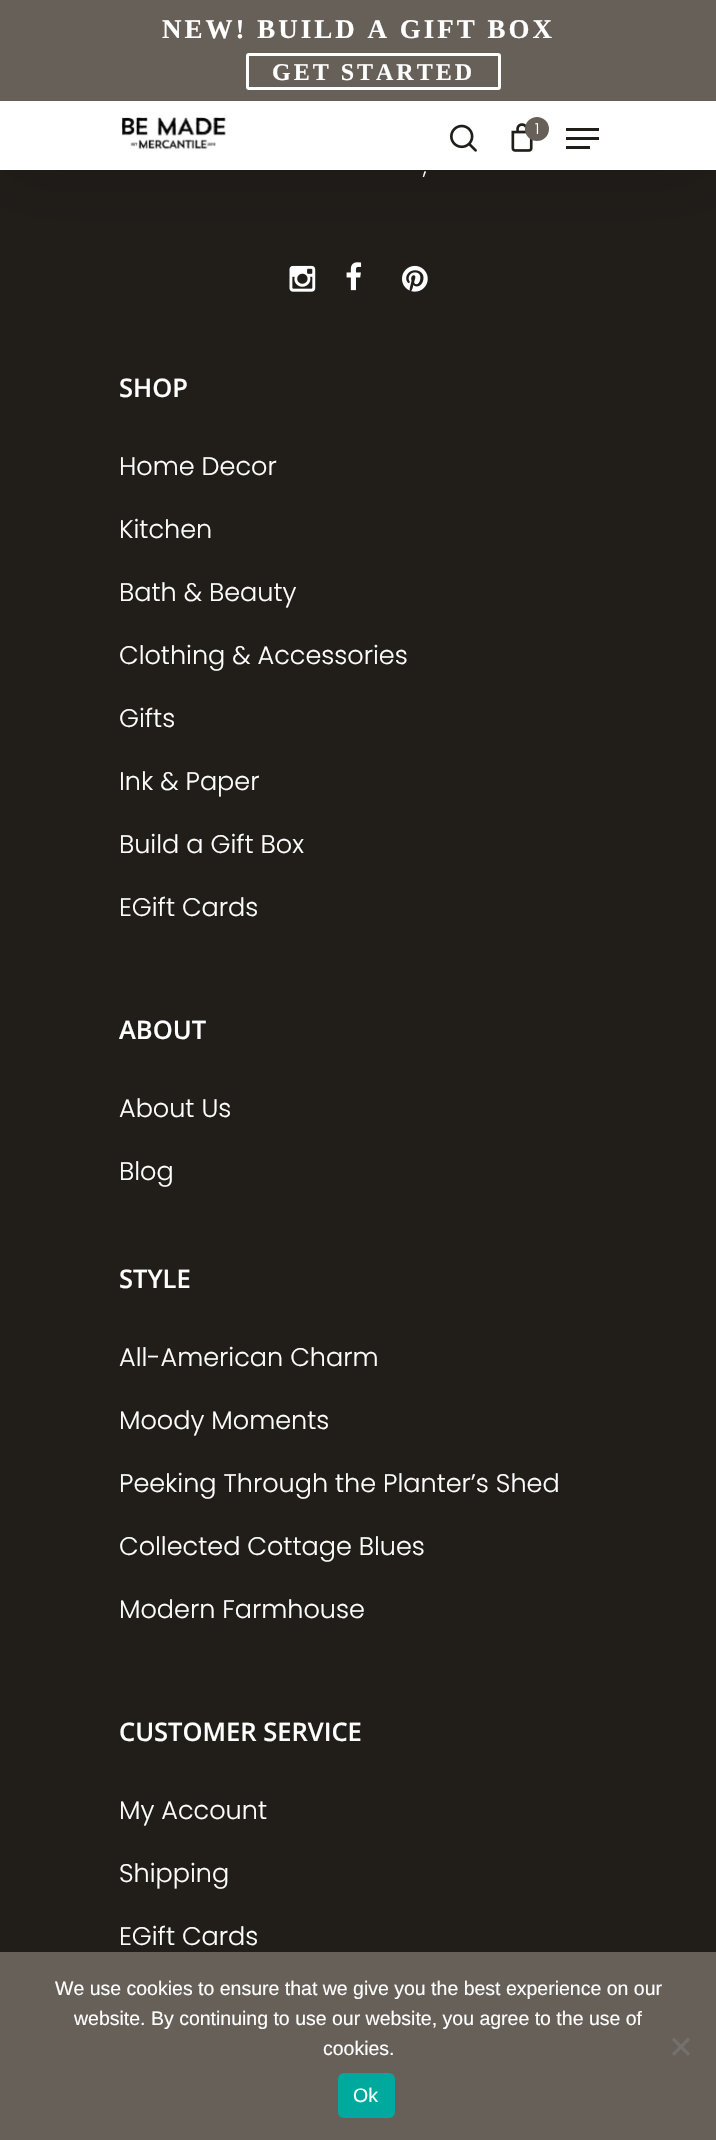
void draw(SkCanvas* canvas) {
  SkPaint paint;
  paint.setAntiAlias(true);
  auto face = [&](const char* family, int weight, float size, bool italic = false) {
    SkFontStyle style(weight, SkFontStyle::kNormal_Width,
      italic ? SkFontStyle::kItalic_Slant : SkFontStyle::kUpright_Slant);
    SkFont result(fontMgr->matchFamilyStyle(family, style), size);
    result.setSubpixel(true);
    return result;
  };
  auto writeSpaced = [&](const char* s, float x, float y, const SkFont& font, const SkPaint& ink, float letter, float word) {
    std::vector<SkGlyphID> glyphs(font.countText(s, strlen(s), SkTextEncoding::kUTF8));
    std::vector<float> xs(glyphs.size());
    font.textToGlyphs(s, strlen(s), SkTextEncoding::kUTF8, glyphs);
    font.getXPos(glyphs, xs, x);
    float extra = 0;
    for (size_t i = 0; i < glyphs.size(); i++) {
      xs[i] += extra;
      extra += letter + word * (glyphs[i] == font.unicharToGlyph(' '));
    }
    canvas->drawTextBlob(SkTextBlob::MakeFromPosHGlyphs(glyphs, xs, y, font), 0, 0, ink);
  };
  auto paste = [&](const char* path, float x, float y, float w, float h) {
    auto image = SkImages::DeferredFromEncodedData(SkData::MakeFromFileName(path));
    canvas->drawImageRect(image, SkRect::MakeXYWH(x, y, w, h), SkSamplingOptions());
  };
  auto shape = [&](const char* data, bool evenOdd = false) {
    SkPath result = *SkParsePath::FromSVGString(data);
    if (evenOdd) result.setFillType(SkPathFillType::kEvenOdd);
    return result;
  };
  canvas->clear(0xff211d19);
  paste("img/4.png", 289, 265, 27, 27);
  paste("img/5.png", 346, 262, 16, 29);
  paste("img/6.png", 402, 265, 26, 27);
  paint.setColor(0x26000000);
  paint.setMaskFilter(SkMaskFilter::MakeBlur(kNormal_SkBlurStyle, 34));
  canvas->drawRect(SkRect::MakeXYWH(0, 5, 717, 169), paint);
  paint.setMaskFilter(nullptr);
  paint.setColor(0xffffffff);
  canvas->drawRect(SkRect::MakeXYWH(0, 101, 716, 69), paint);
  paint.setColor(0xff666059);
  canvas->drawRect(SkRect::MakeXYWH(0, 0, 716, 101), paint);
  paint.setStroke(true);
  paint.setStrokeWidth(3);
  paint.setColor(0xffffffff);
  canvas->drawRoundRect(SkRect::MakeXYWH(247.5f, 54.5f, 252, 34), 1.5f, 1.5f, paint);
  paste("img/1.png", 121, 117, 105, 33);
  paste("img/2.png", 450, 124, 27, 28);
  paste("img/3.png", 511, 123, 22, 29);
  paint.setStroke(false);
  paint.setColor(0xff666059);
  canvas->drawCircle(537, 129, 12, paint);
  {
    const struct { float x, y, w, h; SkColor color; } items[] = {
      {566, 128, 33, 3, 0xff211d19},
      {566, 146, 24, 3, 0xff211d19},
      {566, 137, 33, 3, 0xff211d19},
      {0, 1952, 716, 188, 0xff666059},
    };
    for (auto [x, y, w, h, color] : items) {
      paint.setColor(color);
      canvas->drawRect(SkRect::MakeXYWH(x, y, w, h), paint);
    }
  }
  paint.setColor(0xff73706d);
  canvas->drawPath(shape("M688 2037.5L690 2040L674 2056L672 2053.5Z"), paint);
  canvas->drawPath(shape("M672 2040L674 2037.5L690 2053.5L688 2056Z"), paint);
  paint.setColor(0xff00a99d);
  canvas->drawRoundRect(SkRect::MakeXYWH(338, 2073, 57, 45), 6, 6, paint);
  auto f0 = face("Liberation Serif", 700, 27);
  paint.setColor(0xffffffff);
  writeSpaced("NEW! BUILD A GIFT BOX", 162, 38, f0, paint, 3, 0);
  auto f1 = face("Liberation Serif", 700, 24);
  writeSpaced("GET STARTED", 272, 80, f1, paint, 3, 0);
  auto f2 = face("Poppins", 300, 15);
  canvas->drawString("1", 535, 134, f2, paint);
  auto f3 = face("Poppins", 300, 21);
  canvas->drawString(",", 423, 174, f3, paint);
  auto f4 = face("Open Sans", 600, 25.5f);
  canvas->drawString("SHOP", 119, 397, f4, paint);
  auto f5 = face("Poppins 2", 300, 25.5f);
  {
    const struct { const char* s; float x, y; } items[] = {
      {"Home Decor", 119, 475},
      {"Kitchen", 119, 538},
      {"Bath & Beauty", 119, 601},
      {"Clothing & Accessories", 119, 664},
      {"Gifts", 119, 727},
      {"Ink & Paper", 119, 790},
      {"Build a Gift Box", 119, 853},
      {"EGift Cards", 119, 916},
    };
    for (auto [s, x, y] : items) {
      canvas->drawString(s, x, y, f5, paint);
    }
  }
  canvas->drawString("ABOUT", 119, 1039, f4, paint);
  canvas->drawString("About Us", 119, 1117, f5, paint);
  canvas->drawString("Blog", 119, 1180, f5, paint);
  canvas->drawString("STYLE", 119, 1288, f4, paint);
  {
    const struct { const char* s; float x, y; } items[] = {
      {"All-American Charm", 119, 1366},
      {"Moody Moments", 119, 1429},
      {"Peeking Through the Planter’s Shed", 119, 1492},
      {"Collected Cottage Blues", 119, 1555},
      {"Modern Farmhouse", 119, 1618},
    };
    for (auto [s, x, y] : items) {
      canvas->drawString(s, x, y, f5, paint);
    }
  }
  canvas->drawString("CUSTOMER SERVICE", 119, 1741, f4, paint);
  {
    const struct { const char* s; float x, y; } items[] = {
      {"My Account", 119, 1819},
      {"Shipping", 119, 1882},
      {"EGift Cards", 119, 1945},
    };
    for (auto [s, x, y] : items) {
      canvas->drawString(s, x, y, f5, paint);
    }
  }
  auto f6 = face("Liberation Sans", 400, 19.5f);
  {
    const struct { const char* s; float x, y; } items[] = {
      {"We use cookies to ensure that we give you the best experience on our", 55, 1995},
      {"website. By continuing to use our website, you agree to the use of", 74, 2025},
      {"cookies.", 323, 2055},
      {"Ok", 353, 2102},
    };
    for (auto [s, x, y] : items) {
      canvas->drawString(s, x, y, f6, paint);
    }
  }
}
